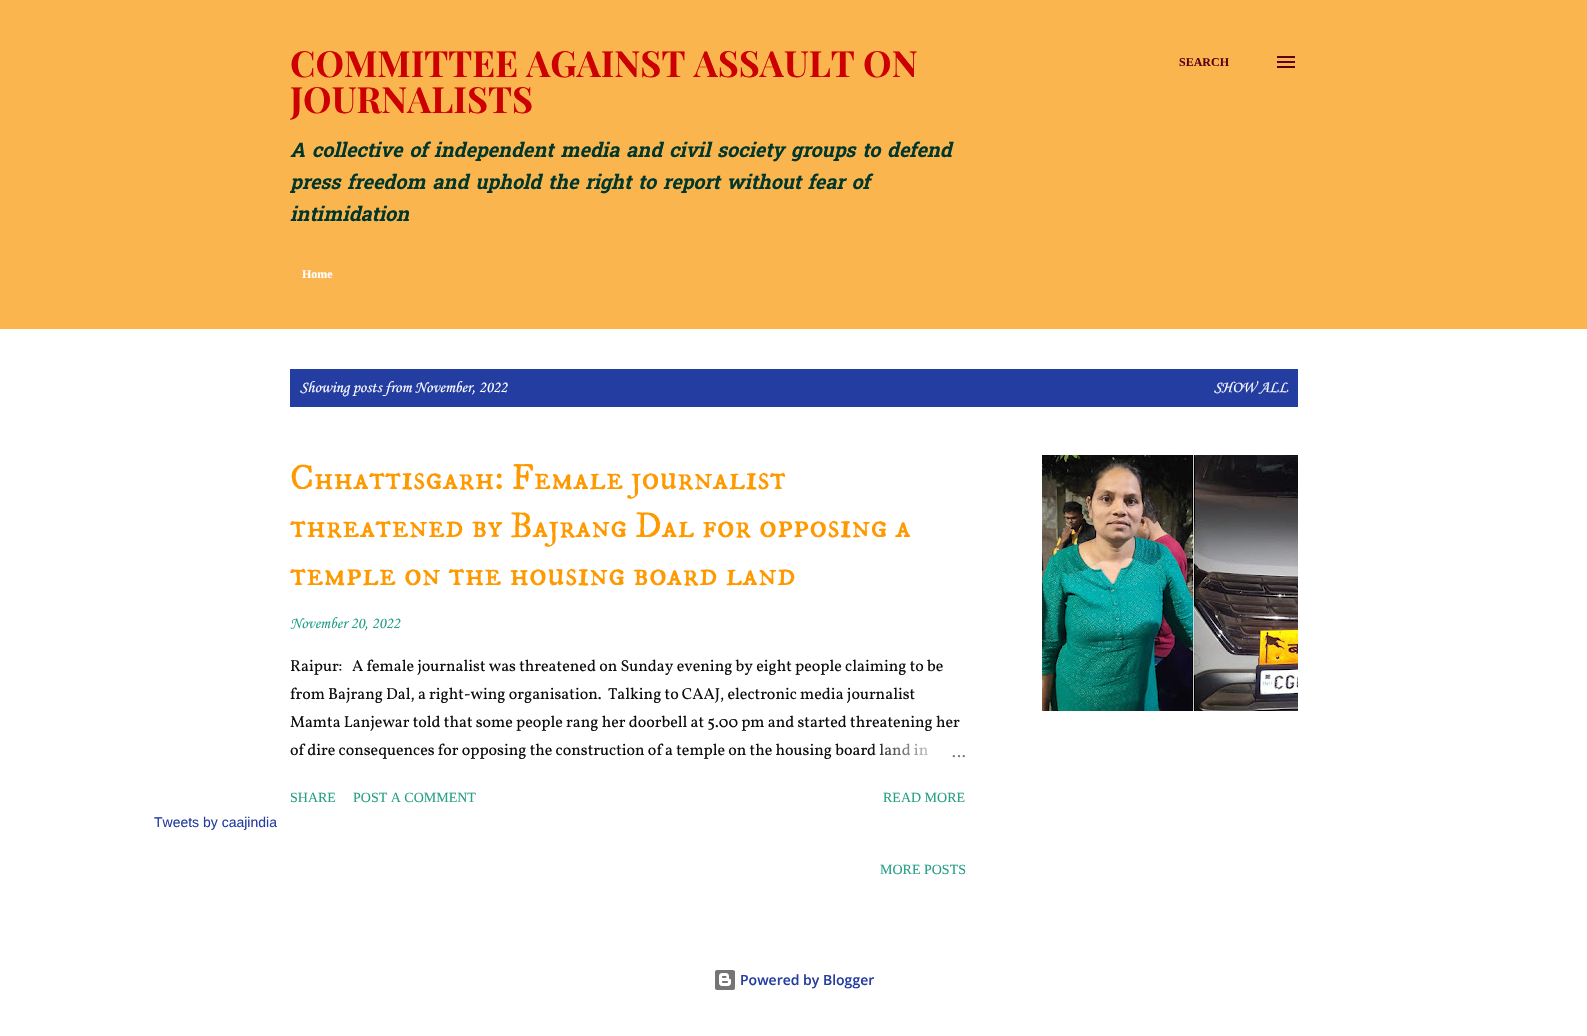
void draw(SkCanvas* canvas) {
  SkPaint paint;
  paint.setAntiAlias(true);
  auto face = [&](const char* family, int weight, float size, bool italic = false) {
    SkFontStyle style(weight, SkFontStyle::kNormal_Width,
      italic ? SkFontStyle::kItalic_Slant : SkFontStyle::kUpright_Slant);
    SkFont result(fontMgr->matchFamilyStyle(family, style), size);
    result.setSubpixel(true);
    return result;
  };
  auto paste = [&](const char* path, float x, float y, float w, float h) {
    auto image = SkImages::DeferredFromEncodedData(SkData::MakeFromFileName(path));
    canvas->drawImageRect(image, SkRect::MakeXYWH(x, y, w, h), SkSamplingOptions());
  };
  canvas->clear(0xffffffff);
  paint.setColor(0xfffab54f);
  canvas->drawRect(SkRect::MakeXYWH(0, 0, 1587, 329), paint);
  paste("img/1.png", 1277, 56, 18, 12);
  paint.setColor(0xff243da0);
  canvas->drawRect(SkRect::MakeXYWH(290, 369, 1008, 38), paint);
  paste("img/2.png", 1042, 455, 256, 256);
  paste("img/3.png", 715, 970, 20, 20);
  auto f0 = face("Playfair Display", 700, 36);
  paint.setColor(0xffcc0000);
  canvas->drawString("COMMITTEE AGAINST ASSAULT ON", 290, 77, f0, paint);
  canvas->save();
  canvas->clipRect(SkRect::MakeXYWH(290, 44, 940, 208));
  canvas->drawString("JOURNALISTS", 290, 113, f0, paint);
  canvas->restore();
  auto f1 = face("Hanuman", 700, 20, true);
  paint.setColor(0xff00372a);
  canvas->drawString("A collective of independent media and civil society groups to defend", 290, 157, f1, paint);
  canvas->save();
  canvas->clipRect(SkRect::MakeXYWH(290, 44, 940, 208));
  canvas->drawString("press freedom and uphold the right to report without fear of", 290, 189, f1, paint);
  canvas->restore();
  canvas->drawString("intimidation", 290, 221, f1, paint);
  auto f2 = face("Liberation Serif", 700, 12);
  paint.setColor(0xff590415);
  canvas->drawString("SEARCH", 1179, 66, f2, paint);
  paint.setColor(0xffffffff);
  canvas->drawString("Home", 302, 278, f2, paint);
  auto f3 = face("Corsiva", 400, 16);
  canvas->drawString("Showing posts from November, 2022", 300, 392, f3, paint);
  canvas->drawString("SHOW ALL", 1214, 392, f3, paint);
  auto f4 = face("Liberation Sans", 400, 14);
  paint.setColor(0xff243da0);
  canvas->drawString("Tweets by caajindia", 154, 827, f4, paint);
  auto f5 = face("IM FELL DW Pica SC", 400, 36);
  paint.setColor(0xffff9900);
  {
    const struct { const char* s; float x, y; } items[] = {
      {"Chhattisgarh: Female journalist", 290, 489},
      {"threatened by Bajrang Dal for opposing a", 290, 537},
      {"temple on the housing board land", 290, 585},
    };
    for (auto [s, x, y] : items) {
      canvas->drawString(s, x, y, f5, paint);
    }
  }
  paint.setColor(0xff24a086);
  canvas->drawString("November 20, 2022", 290, 628, f3, paint);
  auto f6 = face("Vollkorn", 400, 16);
  paint.setColor(0xff0e0e0e);
  {
    const struct { const char* s; float x, y; } items[] = {
      {"Raipur:   A female journalist was threatened on Sunday evening by eight people claiming to be", 290, 671},
      {"from Bajrang Dal, a right-wing organisation.  Talking to CAAJ, electronic media journalist", 290, 699},
      {"Mamta Lanjewar told that some people rang her doorbell at 5.00 pm and started threatening her", 290, 727},
      {"of dire consequences for opposing the construction of a temple on the housing board land in", 290, 755},
    };
    for (auto [s, x, y] : items) {
      canvas->drawString(s, x, y, f6, paint);
    }
  }
  {
    const SkColor colors[] = {0xffffffff, 0xffffffff, 0x00ffffff};
    const float stops[] = {0, 0.2f, 1};
    const SkPoint ends[] = {{966, 751}, {870, 751}};
    paint.setShader(SkGradientShader::MakeLinear(ends, colors, stops, 3, SkTileMode::kClamp));
    paint.setAlpha(255);
  }
  canvas->drawRect(SkRect::MakeXYWH(872, 743, 56, 13), paint);
  paint.setShader(nullptr);
  paint.setColor(0xff757575);
  canvas->drawString("…", 952, 757, f6, paint);
  auto f7 = face("Liberation Serif", 400, 14);
  paint.setColor(0xff24a086);
  {
    const struct { const char* s; float x, y; } items[] = {
      {"SHARE", 290, 802},
      {"POST A COMMENT", 353, 802},
      {"READ MORE", 883, 802},
      {"MORE POSTS", 880, 874},
    };
    for (auto [s, x, y] : items) {
      canvas->drawString(s, x, y, f7, paint);
    }
  }
  auto f8 = face("Open Sans", 600, 14);
  paint.setColor(0xff243da0);
  canvas->drawString("Powered by Blogger", 740, 985, f8, paint);
}
